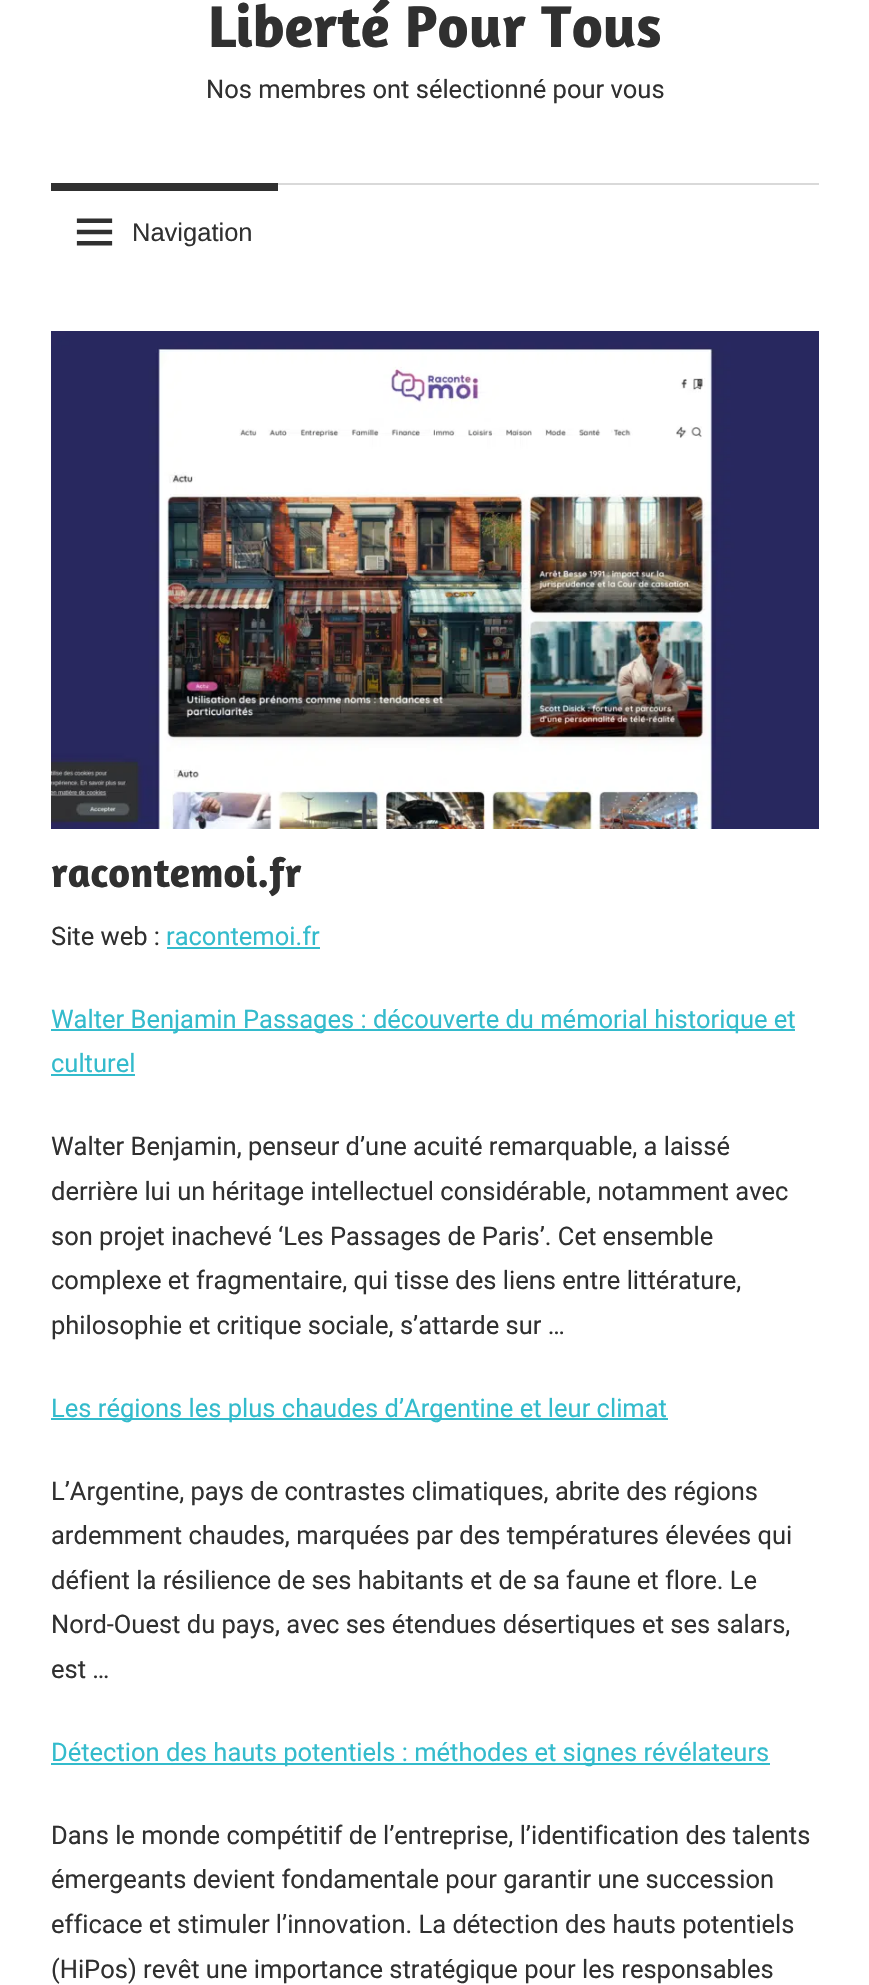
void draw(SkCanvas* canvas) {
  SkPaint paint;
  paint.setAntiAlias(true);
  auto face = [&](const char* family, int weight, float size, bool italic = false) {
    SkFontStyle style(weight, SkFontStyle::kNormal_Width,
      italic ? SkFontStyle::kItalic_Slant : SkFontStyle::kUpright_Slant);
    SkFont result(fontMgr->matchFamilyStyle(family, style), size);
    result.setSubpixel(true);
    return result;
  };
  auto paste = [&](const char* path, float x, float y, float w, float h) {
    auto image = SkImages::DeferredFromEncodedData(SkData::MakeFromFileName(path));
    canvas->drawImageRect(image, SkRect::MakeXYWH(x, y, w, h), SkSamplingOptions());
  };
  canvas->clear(0xffffffff);
  paint.setColor(0xffd9d9d9);
  canvas->drawRect(SkRect::MakeXYWH(278, 183, 541, 2), paint);
  paint.setColor(0xff303030);
  canvas->drawRect(SkRect::MakeXYWH(51, 183, 227, 8), paint);
  paste("img/1.png", 76, 218, 37, 28);
  paste("img/2.png", 51, 331, 768, 498);
  {
    const struct { float x, y, w, h; SkColor color; } items[] = {
      {167, 947, 153, 2, 0xff33bbcc},
      {51, 1029, 744, 2, 0xff33bbcc},
      {51, 1074, 84, 2, 0xff33bbcc},
      {51, 1418, 617, 2, 0xff33bbcc},
      {51, 1763, 719, 2, 0xff33bbcc},
    };
    for (auto [x, y, w, h, color] : items) {
      paint.setColor(color);
      canvas->drawRect(SkRect::MakeXYWH(x, y, w, h), paint);
    }
  }
  auto f0 = face("Amaranth", 700, 60);
  paint.setColor(0xff303030);
  canvas->drawString("Liberté Pour Tous", 208, 47, f0, paint);
  auto f1 = face("Roboto", 400, 25.5f);
  canvas->drawString("Nos membres ont sélectionné pour vous", 206, 98, f1, paint);
  auto f2 = face("Liberation Sans", 400, 25.5f);
  canvas->drawString("Navigation", 132, 241, f2, paint);
  auto f3 = face("Amaranth", 700, 42);
  canvas->drawString("racontemoi.fr", 51, 887, f3, paint);
  canvas->drawString("Site web :", 51, 945, f1, paint);
  paint.setColor(0xff33bbcc);
  {
    const struct { const char* s; float x, y; } items[] = {
      {"racontemoi.fr", 166, 945},
      {"Walter Benjamin Passages : découverte du mémorial historique et", 51, 1028},
      {"culturel", 51, 1072},
    };
    for (auto [s, x, y] : items) {
      canvas->drawString(s, x, y, f1, paint);
    }
  }
  paint.setColor(0xff303030);
  {
    const struct { const char* s; float x, y; } items[] = {
      {"Walter Benjamin, penseur d’une acuité remarquable, a laissé", 51, 1155},
      {"derrière lui un héritage intellectuel considérable, notamment avec", 51, 1200},
      {"son projet inachevé ‘Les Passages de Paris’. Cet ensemble", 51, 1245},
      {"complexe et fragmentaire, qui tisse des liens entre littérature,", 51, 1289},
      {"philosophie et critique sociale, s’attarde sur …", 51, 1334},
    };
    for (auto [s, x, y] : items) {
      canvas->drawString(s, x, y, f1, paint);
    }
  }
  paint.setColor(0xff33bbcc);
  canvas->drawString("Les régions les plus chaudes d’Argentine et leur climat", 51, 1417, f1, paint);
  paint.setColor(0xff303030);
  {
    const struct { const char* s; float x, y; } items[] = {
      {"L’Argentine, pays de contrastes climatiques, abrite des régions", 51, 1500},
      {"ardemment chaudes, marquées par des températures élevées qui", 51, 1544},
      {"défient la résilience de ses habitants et de sa faune et flore. Le", 51, 1589},
      {"Nord-Ouest du pays, avec ses étendues désertiques et ses salars,", 51, 1633},
      {"est …", 51, 1678},
    };
    for (auto [s, x, y] : items) {
      canvas->drawString(s, x, y, f1, paint);
    }
  }
  paint.setColor(0xff33bbcc);
  canvas->drawString("Détection des hauts potentiels : méthodes et signes révélateurs", 51, 1761, f1, paint);
  paint.setColor(0xff303030);
  {
    const struct { const char* s; float x, y; } items[] = {
      {"Dans le monde compétitif de l’entreprise, l’identification des talents", 51, 1844},
      {"émergeants devient fondamentale pour garantir une succession", 51, 1888},
      {"efficace et stimuler l’innovation. La détection des hauts potentiels", 51, 1933},
      {"(HiPos) revêt une importance stratégique pour les responsables", 51, 1978},
    };
    for (auto [s, x, y] : items) {
      canvas->drawString(s, x, y, f1, paint);
    }
  }
}
